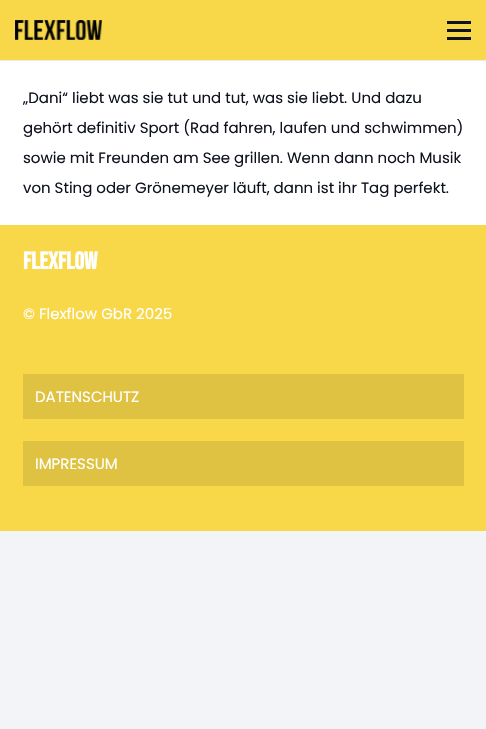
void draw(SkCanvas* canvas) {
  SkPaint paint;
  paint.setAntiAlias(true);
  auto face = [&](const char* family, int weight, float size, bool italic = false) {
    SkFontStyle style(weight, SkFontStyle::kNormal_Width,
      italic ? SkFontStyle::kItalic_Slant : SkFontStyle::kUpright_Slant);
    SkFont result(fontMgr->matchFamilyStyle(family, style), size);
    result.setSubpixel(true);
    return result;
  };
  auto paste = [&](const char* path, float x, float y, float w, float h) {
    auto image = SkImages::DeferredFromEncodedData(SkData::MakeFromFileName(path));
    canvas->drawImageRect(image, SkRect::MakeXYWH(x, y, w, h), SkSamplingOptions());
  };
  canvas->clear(0xfff2f4f7);
  {
    const struct { float x, y, w, h; SkColor color; } items[] = {
      {0, 61, 486, 164, 0xffffffff},
      {0, 60, 486, 1, 0xffebebeb},
      {0, 0, 486, 60, 0xfff8d849},
    };
    for (auto [x, y, w, h, color] : items) {
      paint.setColor(color);
      canvas->drawRect(SkRect::MakeXYWH(x, y, w, h), paint);
    }
  }
  paste("img/1.png", 15, 20, 87, 20);
  {
    const struct { float x, y, w, h; SkColor color; } items[] = {
      {447, 29, 24, 3, 0xff0f131f},
      {447, 21, 24, 3, 0xff0f131f},
      {447, 37, 24, 3, 0xff0f131f},
      {0, 225, 486, 306, 0xfff8d849},
      {23, 374, 441, 45, 0xffdfc242},
      {23, 441, 441, 45, 0xffdfc242},
    };
    for (auto [x, y, w, h, color] : items) {
      paint.setColor(color);
      canvas->drawRect(SkRect::MakeXYWH(x, y, w, h), paint);
    }
  }
  auto f0 = face("Poppins", 400, 15);
  paint.setColor(0xff0f131f);
  {
    const struct { const char* s; float x, y; } items[] = {
      {"„Dani“ liebt was sie tut und tut, was sie liebt. Und dazu", 23, 103},
      {"gehört definitiv Sport (Rad fahren, laufen und schwimmen)", 23, 133},
      {"sowie mit Freunden am See grillen. Wenn dann noch Musik", 23, 163},
      {"von Sting oder Grönemeyer läuft, dann ist ihr Tag perfekt.", 23, 193},
    };
    for (auto [s, x, y] : items) {
      canvas->drawString(s, x, y, f0, paint);
    }
  }
  auto f1 = face("Bebas Neue", 700, 24);
  paint.setColor(0xffffffff);
  canvas->drawString("FLEXFLOW", 23, 269, f1, paint);
  {
    const struct { const char* s; float x, y; } items[] = {
      {"© Flexflow GbR 2025", 23, 319},
      {"DATENSCHUTZ", 35, 402},
      {"IMPRESSUM", 35, 469},
    };
    for (auto [s, x, y] : items) {
      canvas->drawString(s, x, y, f0, paint);
    }
  }
}
